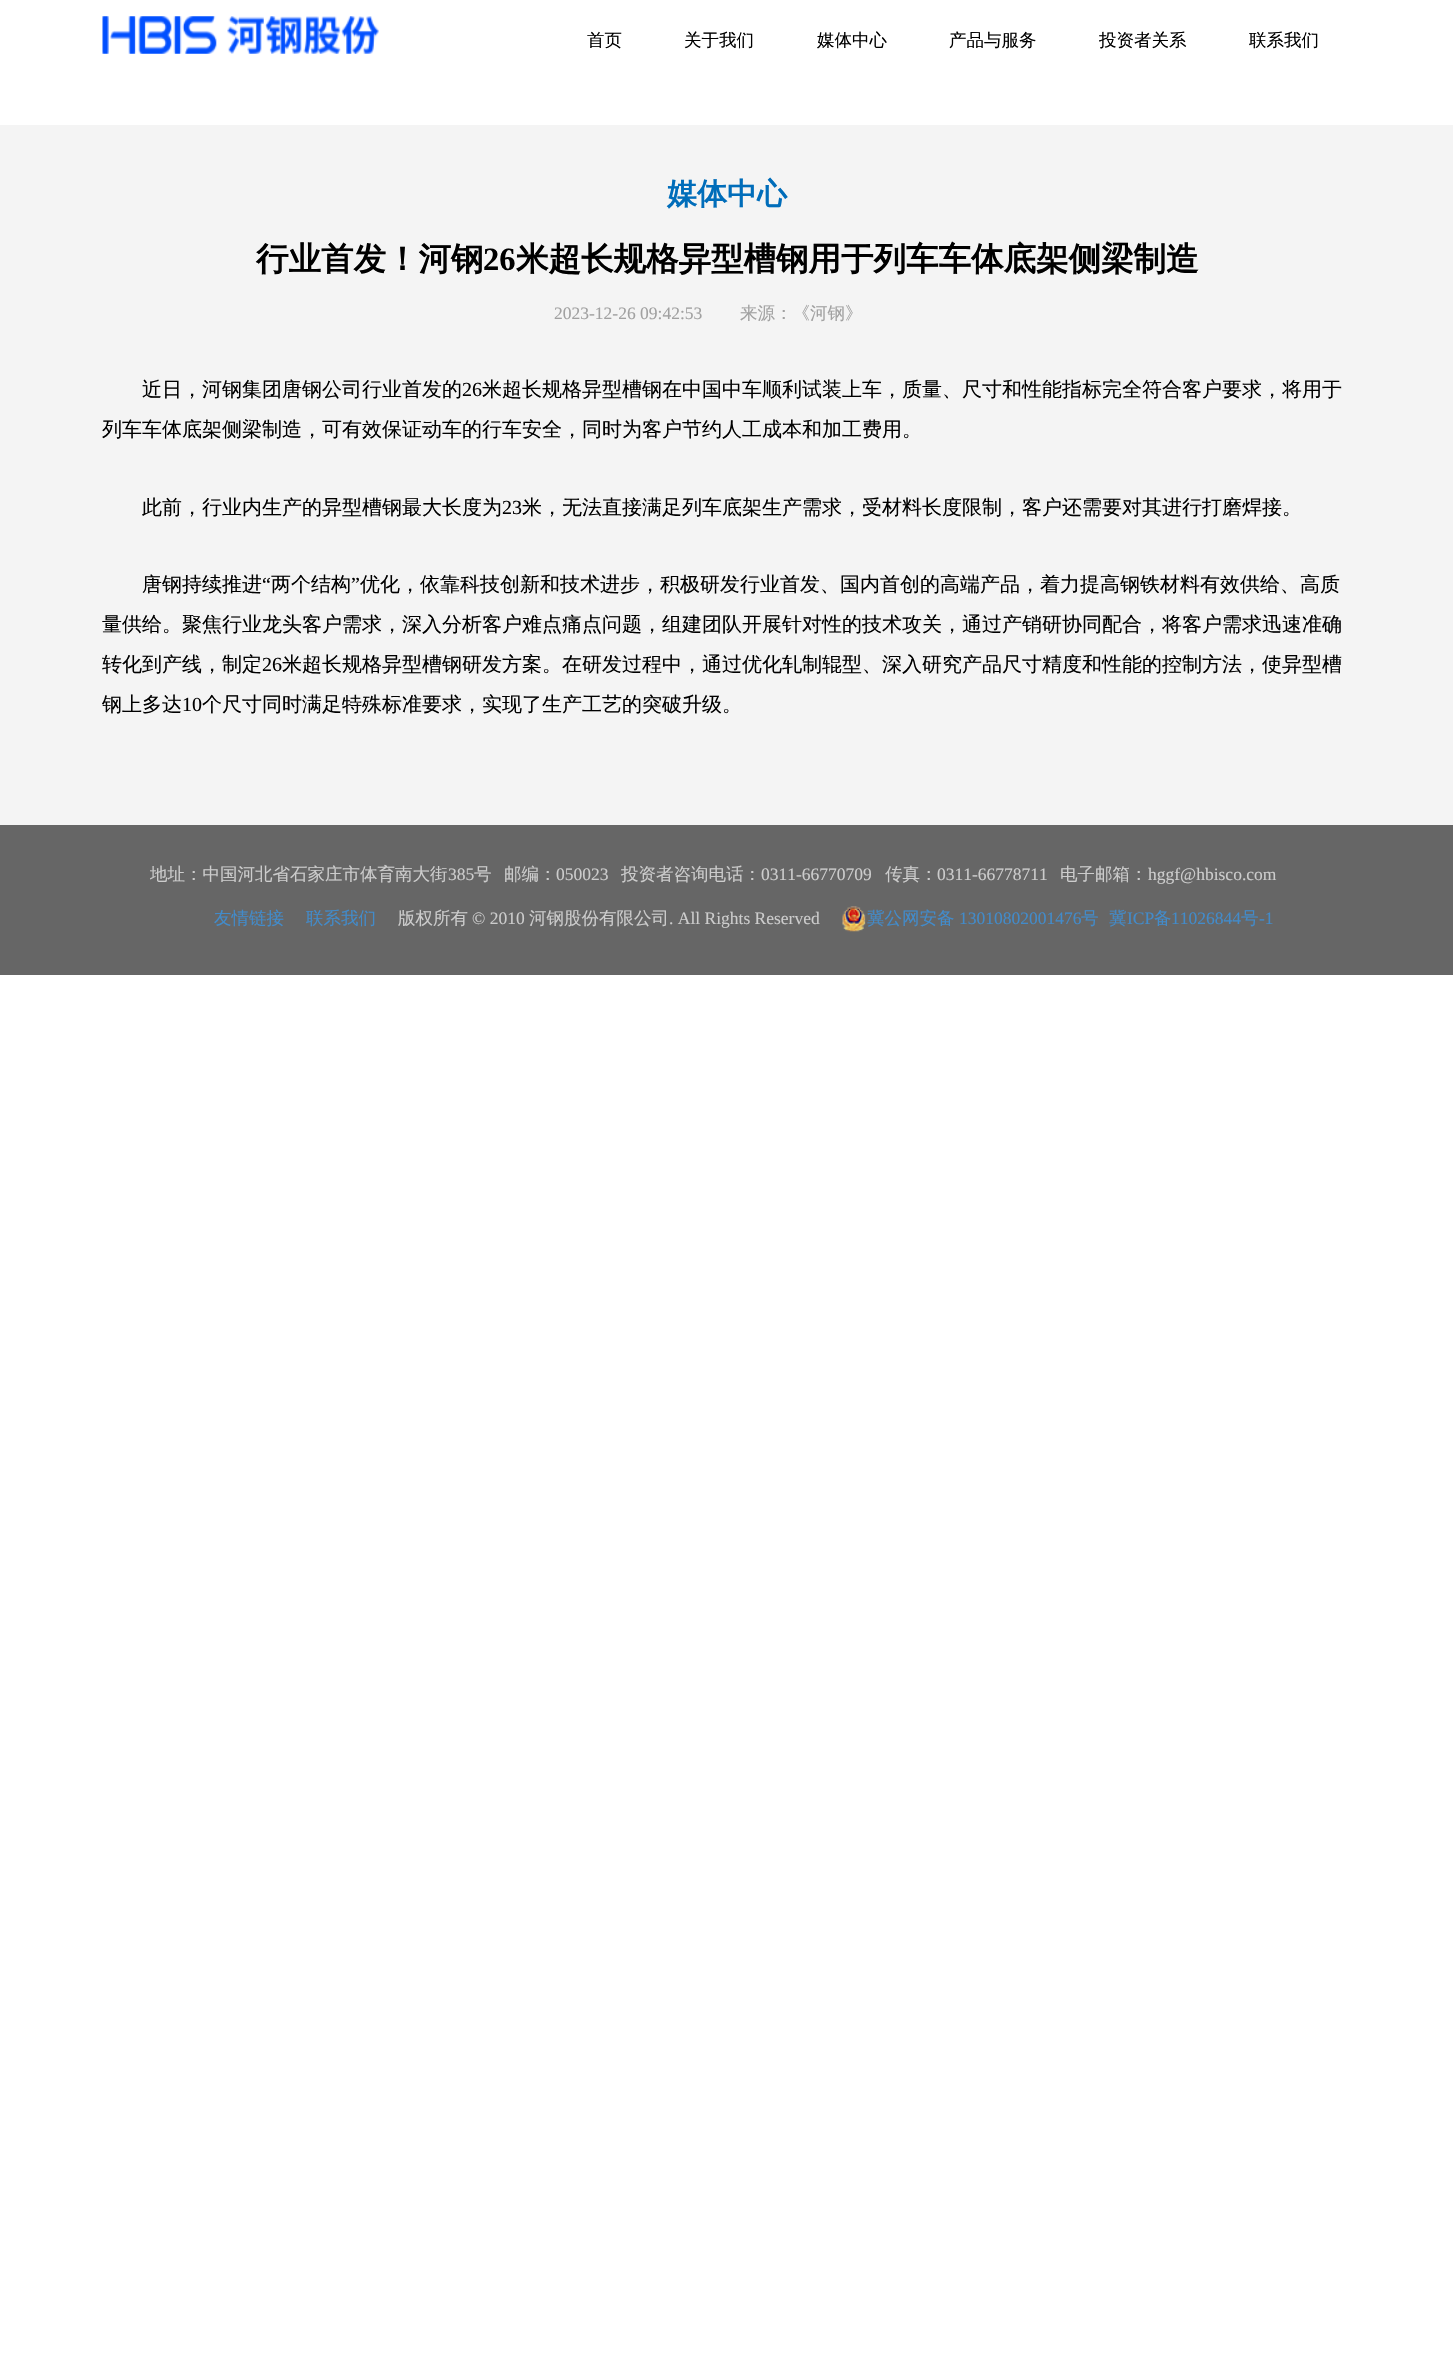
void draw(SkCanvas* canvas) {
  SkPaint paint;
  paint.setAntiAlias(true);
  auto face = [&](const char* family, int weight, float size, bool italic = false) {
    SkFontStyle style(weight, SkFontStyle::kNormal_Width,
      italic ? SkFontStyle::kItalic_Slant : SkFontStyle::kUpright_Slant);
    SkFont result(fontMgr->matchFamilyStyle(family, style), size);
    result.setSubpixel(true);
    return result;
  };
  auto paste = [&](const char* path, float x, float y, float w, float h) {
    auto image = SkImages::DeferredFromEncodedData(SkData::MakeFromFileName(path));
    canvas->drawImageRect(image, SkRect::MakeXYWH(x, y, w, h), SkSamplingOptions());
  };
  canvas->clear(0xffffffff);
  paste("img/1.png", 102, 16, 277, 38);
  paint.setColor(0xfff4f4f4);
  canvas->drawRect(SkRect::MakeXYWH(0, 125, 1453, 700), paint);
  paint.setColor(0xff666666);
  canvas->drawRect(SkRect::MakeXYWH(0, 825, 1453, 150), paint);
  paste("img/2.png", 842, 906, 24, 26);
  auto f0 = face("WenQuanYi Zen Hei", 500, 17.5f);
  paint.setColor(0xff000000);
  {
    const struct { const char* s; float x, y; } items[] = {
      {"首页", 587, 46},
      {"关于我们", 684, 46},
      {"媒体中心", 817, 46},
      {"产品与服务", 949, 46},
      {"投资者关系", 1099, 46},
      {"联系我们", 1249, 46},
    };
    for (auto [s, x, y] : items) {
      canvas->drawString(s, x, y, f0, paint);
    }
  }
  auto f1 = face("WenQuanYi Zen Hei", 700, 30);
  paint.setColor(0xff006dba);
  canvas->drawString("媒体中心", 667, 204, f1, paint);
  auto f2 = face("WenQuanYi Zen Hei", 700, 32.5f);
  paint.setColor(0xff000000);
  canvas->drawString("行业首发！河钢", 256, 270, f2, paint);
  auto f3 = face("Liberation Serif", 700, 32.5f);
  canvas->drawString("26", 483, 270, f3, paint);
  canvas->drawString("米超长规格异型槽钢用于列车车体底架侧梁制造", 516, 270, f2, paint);
  auto f4 = face("Liberation Serif", 400, 17.5f);
  paint.setColor(0xffa1a1a1);
  canvas->drawString("2023-12-26 09:42:53", 554, 319, f4, paint);
  canvas->drawString("来源：《河钢》", 740, 319, f0, paint);
  auto f5 = face("WenQuanYi Zen Hei", 500, 20);
  paint.setColor(0xff000000);
  canvas->drawString("近日，河钢集团唐钢公司行业首发的", 142, 396, f5, paint);
  auto f6 = face("Liberation Serif", 400, 20);
  canvas->drawString("26", 462, 396, f6, paint);
  {
    const struct { const char* s; float x, y; } items[] = {
      {"米超长规格异型槽钢在中国中车顺利试装上车，质量、尺寸和性能指标完全符合客户要求，将用于", 482, 396},
      {"列车车体底架侧梁制造，可有效保证动车的行车安全，同时为客户节约人工成本和加工费用。", 102, 436},
      {"此前，行业内生产的异型槽钢最大长度为", 142, 514},
    };
    for (auto [s, x, y] : items) {
      canvas->drawString(s, x, y, f5, paint);
    }
  }
  canvas->drawString("23", 502, 514, f6, paint);
  canvas->drawString("米，无法直接满足列车底架生产需求，受材料长度限制，客户还需要对其进行打磨焊接。", 522, 514, f5, paint);
  canvas->drawString("唐钢持续推进", 142, 591, f5, paint);
  canvas->drawString("“", 262, 591, f6, paint);
  canvas->drawString("两个结构", 271, 591, f5, paint);
  canvas->drawString("”", 351, 591, f6, paint);
  {
    const struct { const char* s; float x, y; } items[] = {
      {"优化，依靠科技创新和技术进步，积极研发行业首发、国内首创的高端产品，着力提高钢铁材料有效供给、高质", 360, 591},
      {"量供给。聚焦行业龙头客户需求，深入分析客户难点痛点问题，组建团队开展针对性的技术攻关，通过产销研协同配合，将客户需求迅速准确", 102, 631},
      {"转化到产线，制定", 102, 671},
    };
    for (auto [s, x, y] : items) {
      canvas->drawString(s, x, y, f5, paint);
    }
  }
  canvas->drawString("26", 262, 671, f6, paint);
  canvas->drawString("米超长规格异型槽钢研发方案。在研发过程中，通过优化轧制辊型、深入研究产品尺寸精度和性能的控制方法，使异型槽", 282, 671, f5, paint);
  canvas->drawString("钢上多达", 102, 711, f5, paint);
  canvas->drawString("10", 182, 711, f6, paint);
  canvas->drawString("个尺寸同时满足特殊标准要求，实现了生产工艺的突破升级。", 202, 711, f5, paint);
  paint.setColor(0xffcccccc);
  canvas->drawString("地址：中国河北省石家庄市体育南大街", 150, 880, f0, paint);
  canvas->drawString("385", 448, 880, f4, paint);
  canvas->drawString("号", 474, 880, f0, paint);
  canvas->drawString("邮编：", 504, 880, f0, paint);
  canvas->drawString("050023", 556, 880, f4, paint);
  canvas->drawString("投资者咨询电话：", 621, 880, f0, paint);
  canvas->drawString("0311-66770709", 761, 880, f4, paint);
  canvas->drawString("传真：", 885, 880, f0, paint);
  canvas->drawString("0311-66778711", 937, 880, f4, paint);
  canvas->drawString("电子邮箱：", 1060, 880, f0, paint);
  canvas->drawString("hggf@hbisco.com", 1148, 880, f4, paint);
  paint.setColor(0xff428bca);
  canvas->drawString("友情链接", 214, 924, f0, paint);
  canvas->drawString("联系我们", 306, 924, f0, paint);
  paint.setColor(0xffcccccc);
  canvas->drawString("版权所有", 398, 924, f0, paint);
  canvas->drawString("© 2010", 472, 924, f4, paint);
  canvas->drawString("河钢股份有限公司", 529, 924, f0, paint);
  canvas->drawString(". All Rights Reserved", 669, 924, f4, paint);
  paint.setColor(0xff428bca);
  canvas->drawString("冀公网安备", 867, 924, f0, paint);
  canvas->drawString("13010802001476", 959, 924, f4, paint);
  canvas->drawString("号", 1081, 924, f0, paint);
  canvas->drawString("冀", 1109, 924, f0, paint);
  canvas->drawString("ICP", 1127, 924, f4, paint);
  canvas->drawString("备", 1154, 924, f0, paint);
  canvas->drawString("11026844", 1171, 924, f4, paint);
  canvas->drawString("号", 1241, 924, f0, paint);
  canvas->drawString("-1", 1259, 924, f4, paint);
}
